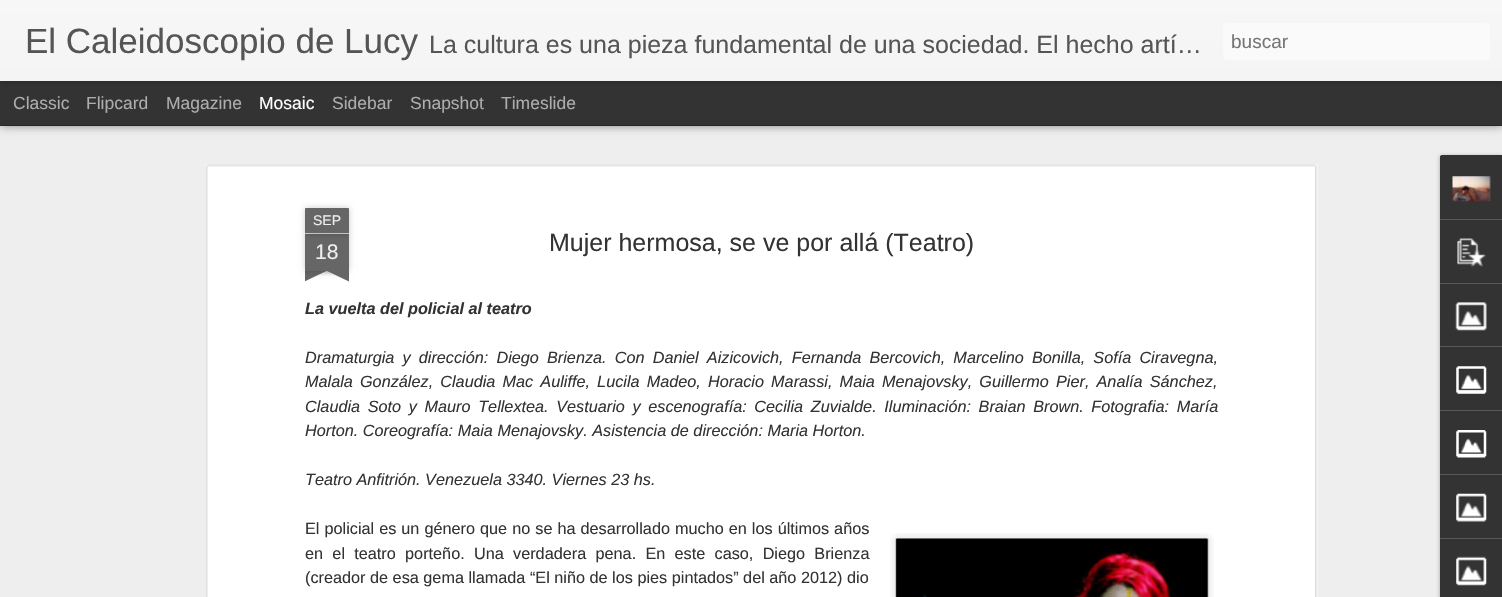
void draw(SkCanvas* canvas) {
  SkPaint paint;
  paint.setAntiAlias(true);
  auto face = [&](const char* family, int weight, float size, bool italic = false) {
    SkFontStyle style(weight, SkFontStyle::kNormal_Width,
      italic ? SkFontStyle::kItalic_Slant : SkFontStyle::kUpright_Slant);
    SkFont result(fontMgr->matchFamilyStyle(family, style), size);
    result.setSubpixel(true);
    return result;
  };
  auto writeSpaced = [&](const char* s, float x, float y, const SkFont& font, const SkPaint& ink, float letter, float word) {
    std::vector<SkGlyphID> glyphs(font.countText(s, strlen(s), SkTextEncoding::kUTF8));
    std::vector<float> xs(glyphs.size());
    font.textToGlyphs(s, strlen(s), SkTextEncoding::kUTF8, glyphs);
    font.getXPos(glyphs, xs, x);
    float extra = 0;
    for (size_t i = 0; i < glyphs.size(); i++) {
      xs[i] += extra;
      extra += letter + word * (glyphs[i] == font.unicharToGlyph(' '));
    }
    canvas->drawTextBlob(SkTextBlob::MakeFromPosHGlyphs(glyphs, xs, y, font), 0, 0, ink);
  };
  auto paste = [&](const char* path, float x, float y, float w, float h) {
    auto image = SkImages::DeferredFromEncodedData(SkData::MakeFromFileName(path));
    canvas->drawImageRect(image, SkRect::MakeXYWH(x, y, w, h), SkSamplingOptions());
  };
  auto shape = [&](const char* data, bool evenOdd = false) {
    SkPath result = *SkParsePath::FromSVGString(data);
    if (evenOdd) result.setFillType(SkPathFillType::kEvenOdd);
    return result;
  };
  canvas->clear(0xff333333);
  paint.setColor(0xffeeeeee);
  canvas->drawRect(SkRect::MakeXYWH(0, 126, 1502, 471), paint);
  paint.setColor(0x80000000);
  paint.setMaskFilter(SkMaskFilter::MakeBlur(kNormal_SkBlurStyle, 5));
  canvas->drawRect(SkRect::MakeXYWH(0, 81, 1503, 44), paint);
  paint.setMaskFilter(nullptr);
  paint.setColor(0xff333333);
  canvas->drawRect(SkRect::MakeXYWH(0, 81, 1502, 44), paint);
  paint.setColor(0x4d000000);
  paint.setMaskFilter(SkMaskFilter::MakeBlur(kNormal_SkBlurStyle, 3));
  canvas->drawRect(SkRect::MakeXYWH(0, 0, 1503, 81), paint);
  paint.setMaskFilter(nullptr);
  {
    const SkColor colors[] = {0xfff7f7f7, 0xfff4f4f4};
    const float stops[] = {0, 1};
    const SkPoint ends[] = {{0, 0}, {0, 81}};
    paint.setShader(SkGradientShader::MakeLinear(ends, colors, stops, 2, SkTileMode::kClamp));
    paint.setAlpha(255);
  }
  canvas->drawRect(SkRect::MakeXYWH(0, 0, 1502, 81), paint);
  paint.setShader(nullptr);
  paint.setColor(0xfffafafa);
  canvas->drawRoundRect(SkRect::MakeXYWH(1223, 23, 267, 37), 4, 4, paint);
  paint.setColor(0xffffffff);
  canvas->drawRect(SkRect::MakeXYWH(205, 164, 1113, 433), paint);
  paste("img/1.png", 205, 164, 1113, 433);
  paint.setColor(0x33000000);
  paint.setMaskFilter(SkMaskFilter::MakeBlur(kNormal_SkBlurStyle, 3));
  canvas->drawRect(SkRect::MakeXYWH(305, 234, 44, 37), paint);
  paint.setMaskFilter(nullptr);
  paint.setColor(0xff666666);
  canvas->drawRect(SkRect::MakeXYWH(305, 234, 44, 37), paint);
  paint.setColor(0x33000000);
  paint.setMaskFilter(SkMaskFilter::MakeBlur(kNormal_SkBlurStyle, 3));
  canvas->drawRoundRect(SkRect::MakeXYWH(305, 208, 44, 26), 1, 1, paint);
  paint.setMaskFilter(nullptr);
  paint.setColor(0xff666666);
  canvas->drawPath(shape("M306 208H348C348.5 208 349 208.5 349 209V234H305V209C305 208.5 305.5 208 306 208Z"), paint);
  paint.setColor(0xffc2c2c2);
  canvas->drawRect(SkRect::MakeXYWH(305, 233, 44, 1), paint);
  canvas->save();
  canvas->clipRect(SkRect::MakeXYWH(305, 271, 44, 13));
  paint.setColor(0x33000000);
  paint.setMaskFilter(SkMaskFilter::MakeBlur(kNormal_SkBlurStyle, 3));
  canvas->drawRect(SkRect::MakeXYWH(294, 259, 62, 12), paint);
  paint.setMaskFilter(nullptr);
  canvas->restore();
  canvas->save();
  canvas->clipRect(SkRect::MakeXYWH(305, 271, 44, 13));
  paint.setColor(0xff666666);
  canvas->drawPath(shape("M294 273L351 246L356 257L299 284Z"), paint);
  canvas->restore();
  canvas->save();
  canvas->clipRect(SkRect::MakeXYWH(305, 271, 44, 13));
  paint.setColor(0x33000000);
  paint.setMaskFilter(SkMaskFilter::MakeBlur(kNormal_SkBlurStyle, 3));
  canvas->drawRect(SkRect::MakeXYWH(298, 259, 62, 12), paint);
  paint.setMaskFilter(nullptr);
  canvas->restore();
  canvas->save();
  canvas->clipRect(SkRect::MakeXYWH(305, 271, 44, 13));
  paint.setColor(0xff666666);
  canvas->drawPath(shape("M303 246L360 273L354 284L298 257Z"), paint);
  canvas->restore();
  paste("img/2.png", 890, 533, 324, 64);
  paste("img/3.png", 895, 538, 314, 59);
  paint.setColor(0x4d000000);
  paint.setMaskFilter(SkMaskFilter::MakeBlur(kNormal_SkBlurStyle, 2));
  canvas->drawRoundRect(SkRect::MakeXYWH(1440, 156, 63, 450), 2.5f, 2.5f, paint);
  paint.setMaskFilter(nullptr);
  paint.setColor(0xff333333);
  canvas->drawPath(shape("M1442.5 155H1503V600H1442.5C1441 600 1440 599 1440 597.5V157.5C1440 156 1441 155 1442.5 155Z"), paint);
  canvas->drawPath(shape("M1442.5 155H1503V219H1440V157.5C1440 156 1441 155 1442.5 155Z"), paint);
  paste("img/4.png", 1452, 176, 39, 26);
  paint.setColor(0xff585858);
  canvas->drawRect(SkRect::MakeXYWH(1440, 219, 62, 1), paint);
  paste("img/5.png", 1457, 238, 29, 29);
  canvas->drawRect(SkRect::MakeXYWH(1440, 283, 62, 1), paint);
  paste("img/6.png", 1455, 302, 32, 29);
  canvas->drawRect(SkRect::MakeXYWH(1440, 346, 62, 1), paint);
  paste("img/7.png", 1456, 366, 31, 28);
  canvas->drawRect(SkRect::MakeXYWH(1440, 410, 62, 1), paint);
  paste("img/8.png", 1456, 430, 31, 28);
  canvas->drawRect(SkRect::MakeXYWH(1440, 474, 62, 1), paint);
  paste("img/9.png", 1456, 493, 31, 29);
  canvas->drawRect(SkRect::MakeXYWH(1440, 538, 62, 1), paint);
  paste("img/10.png", 1456, 556, 31, 30);
  auto f0 = face("Liberation Sans", 400, 35);
  paint.setColor(0xff555555);
  canvas->drawString("El Caleidoscopio de Lucy", 25, 53, f0, paint);
  auto f1 = face("Liberation Sans", 400, 25);
  canvas->drawString("La cultura es una pieza fundamental de una sociedad. El hecho artí…", 429, 53, f1, paint);
  auto f2 = face("Liberation Sans", 400, 19);
  paint.setColor(0xff757575);
  canvas->drawString("buscar", 1231, 48, f2, paint);
  auto f3 = face("Liberation Sans", 400, 17.5f);
  paint.setColor(0xffadadad);
  {
    const struct { const char* s; float x, y; } items[] = {
      {"Classic", 13, 109},
      {"Flipcard", 86, 109},
      {"Magazine", 166, 109},
    };
    for (auto [s, x, y] : items) {
      canvas->drawString(s, x, y, f3, paint);
    }
  }
  paint.setColor(0xffffffff);
  canvas->drawString("Mosaic", 259, 109, f3, paint);
  paint.setColor(0xffadadad);
  {
    const struct { const char* s; float x, y; } items[] = {
      {"Sidebar", 332, 109},
      {"Snapshot", 410, 109},
      {"Timeslide", 501, 109},
    };
    for (auto [s, x, y] : items) {
      canvas->drawString(s, x, y, f3, paint);
    }
  }
  auto f4 = face("Liberation Sans", 400, 14);
  paint.setColor(0xffeeeeee);
  canvas->drawString("SEP", 313, 225, f4, paint);
  auto f5 = face("Liberation Sans", 400, 21);
  canvas->drawString("18", 315, 259, f5, paint);
  paint.setColor(0xff333333);
  canvas->drawString("Mujer hermosa, se ve por allá (Teatro)", 549, 251, f1, paint);
  auto f6 = face("Liberation Sans", 700, 16.25f, true);
  canvas->drawString("La vuelta del policial al teatro", 305, 314, f6, paint);
  auto f7 = face("Liberation Sans", 400, 16.25f, true);
  writeSpaced("Dramaturgia y dirección: Diego Brienza. Con Daniel Aizicovich, Fernanda Bercovich, Marcelino Bonilla, Sofía Ciravegna,", 305, 363, f7, paint, 0, 3.6f);
  writeSpaced("Malala González, Claudia Mac Auliffe, Lucila Madeo, Horacio Marassi, Maia Menajovsky, Guillermo Pier, Analía Sánchez,", 305, 387, f7, paint, 0, 2.6f);
  writeSpaced("Claudia Soto y Mauro Tellextea. Vestuario y escenografía: Cecilia Zuvialde. Iluminación: Braian Brown. Fotografia: María", 305, 412, f7, paint, 0, 3.1f);
  canvas->drawString("Horton. Coreografía: Maia Menajovsky. Asistencia de dirección: Maria Horton.", 305, 436, f7, paint);
  canvas->drawString("Teatro Anfitrión. Venezuela 3340. Viernes 23 hs.", 305, 485, f7, paint);
  auto f8 = face("Liberation Sans", 400, 16.25f);
  writeSpaced("El policial es un género que no se ha desarrollado mucho en los últimos años", 305, 534, f8, paint, 0, 0.5f);
  writeSpaced("en el teatro porteño. Una verdadera pena. En este caso, Diego Brienza", 305, 559, f8, paint, 0, 4.75f);
  canvas->drawString("(creador de esa gema llamada “El niño de los pies pintados” del año 2012) dio", 305, 583, f8, paint);
}
